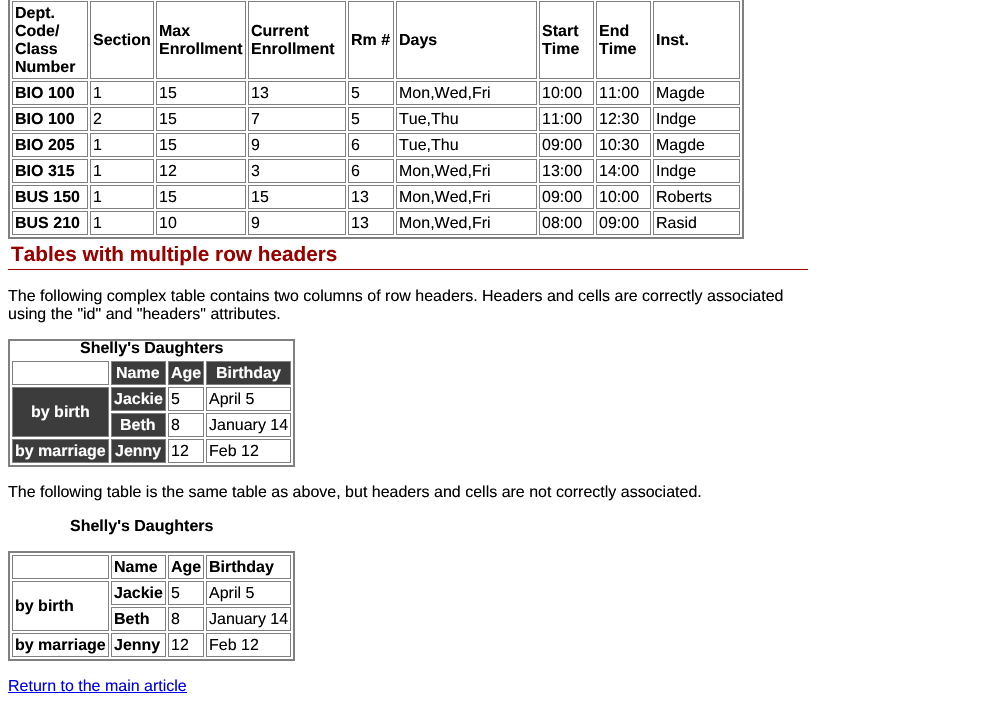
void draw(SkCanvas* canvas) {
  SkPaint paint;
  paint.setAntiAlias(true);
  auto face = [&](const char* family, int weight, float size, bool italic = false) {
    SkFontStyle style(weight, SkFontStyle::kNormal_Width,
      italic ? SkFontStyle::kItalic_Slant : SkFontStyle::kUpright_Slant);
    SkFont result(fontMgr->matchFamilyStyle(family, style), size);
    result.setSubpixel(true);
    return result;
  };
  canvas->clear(0xffffffff);
  paint.setStroke(true);
  paint.setStrokeWidth(2);
  paint.setColor(0xff808080);
  canvas->drawRect(SkRect::MakeXYWH(9, -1, 734, 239), paint);
  paint.setStrokeWidth(1);
  canvas->drawRect(SkRect::MakeXYWH(12.5f, 1.5f, 75, 77), paint);
  canvas->drawRect(SkRect::MakeXYWH(90.5f, 1.5f, 63, 77), paint);
  canvas->drawRect(SkRect::MakeXYWH(156.5f, 1.5f, 89, 77), paint);
  canvas->drawRect(SkRect::MakeXYWH(248.5f, 1.5f, 97, 77), paint);
  canvas->drawRect(SkRect::MakeXYWH(348.5f, 1.5f, 45, 77), paint);
  canvas->drawRect(SkRect::MakeXYWH(396.5f, 1.5f, 140, 77), paint);
  canvas->drawRect(SkRect::MakeXYWH(539.5f, 1.5f, 54, 77), paint);
  canvas->drawRect(SkRect::MakeXYWH(596.5f, 1.5f, 54, 77), paint);
  canvas->drawRect(SkRect::MakeXYWH(653.5f, 1.5f, 86, 77), paint);
  canvas->drawRect(SkRect::MakeXYWH(12.5f, 81.5f, 75, 23), paint);
  canvas->drawRect(SkRect::MakeXYWH(90.5f, 81.5f, 63, 23), paint);
  canvas->drawRect(SkRect::MakeXYWH(156.5f, 81.5f, 89, 23), paint);
  canvas->drawRect(SkRect::MakeXYWH(248.5f, 81.5f, 97, 23), paint);
  canvas->drawRect(SkRect::MakeXYWH(348.5f, 81.5f, 45, 23), paint);
  canvas->drawRect(SkRect::MakeXYWH(396.5f, 81.5f, 140, 23), paint);
  canvas->drawRect(SkRect::MakeXYWH(539.5f, 81.5f, 54, 23), paint);
  canvas->drawRect(SkRect::MakeXYWH(596.5f, 81.5f, 54, 23), paint);
  canvas->drawRect(SkRect::MakeXYWH(653.5f, 81.5f, 86, 23), paint);
  canvas->drawRect(SkRect::MakeXYWH(12.5f, 107.5f, 75, 23), paint);
  canvas->drawRect(SkRect::MakeXYWH(90.5f, 107.5f, 63, 23), paint);
  canvas->drawRect(SkRect::MakeXYWH(156.5f, 107.5f, 89, 23), paint);
  canvas->drawRect(SkRect::MakeXYWH(248.5f, 107.5f, 97, 23), paint);
  canvas->drawRect(SkRect::MakeXYWH(348.5f, 107.5f, 45, 23), paint);
  canvas->drawRect(SkRect::MakeXYWH(396.5f, 107.5f, 140, 23), paint);
  canvas->drawRect(SkRect::MakeXYWH(539.5f, 107.5f, 54, 23), paint);
  canvas->drawRect(SkRect::MakeXYWH(596.5f, 107.5f, 54, 23), paint);
  canvas->drawRect(SkRect::MakeXYWH(653.5f, 107.5f, 86, 23), paint);
  canvas->drawRect(SkRect::MakeXYWH(12.5f, 133.5f, 75, 23), paint);
  canvas->drawRect(SkRect::MakeXYWH(90.5f, 133.5f, 63, 23), paint);
  canvas->drawRect(SkRect::MakeXYWH(156.5f, 133.5f, 89, 23), paint);
  canvas->drawRect(SkRect::MakeXYWH(248.5f, 133.5f, 97, 23), paint);
  canvas->drawRect(SkRect::MakeXYWH(348.5f, 133.5f, 45, 23), paint);
  canvas->drawRect(SkRect::MakeXYWH(396.5f, 133.5f, 140, 23), paint);
  canvas->drawRect(SkRect::MakeXYWH(539.5f, 133.5f, 54, 23), paint);
  canvas->drawRect(SkRect::MakeXYWH(596.5f, 133.5f, 54, 23), paint);
  canvas->drawRect(SkRect::MakeXYWH(653.5f, 133.5f, 86, 23), paint);
  canvas->drawRect(SkRect::MakeXYWH(12.5f, 159.5f, 75, 23), paint);
  canvas->drawRect(SkRect::MakeXYWH(90.5f, 159.5f, 63, 23), paint);
  canvas->drawRect(SkRect::MakeXYWH(156.5f, 159.5f, 89, 23), paint);
  canvas->drawRect(SkRect::MakeXYWH(248.5f, 159.5f, 97, 23), paint);
  canvas->drawRect(SkRect::MakeXYWH(348.5f, 159.5f, 45, 23), paint);
  canvas->drawRect(SkRect::MakeXYWH(396.5f, 159.5f, 140, 23), paint);
  canvas->drawRect(SkRect::MakeXYWH(539.5f, 159.5f, 54, 23), paint);
  canvas->drawRect(SkRect::MakeXYWH(596.5f, 159.5f, 54, 23), paint);
  canvas->drawRect(SkRect::MakeXYWH(653.5f, 159.5f, 86, 23), paint);
  canvas->drawRect(SkRect::MakeXYWH(12.5f, 185.5f, 75, 23), paint);
  canvas->drawRect(SkRect::MakeXYWH(90.5f, 185.5f, 63, 23), paint);
  canvas->drawRect(SkRect::MakeXYWH(156.5f, 185.5f, 89, 23), paint);
  canvas->drawRect(SkRect::MakeXYWH(248.5f, 185.5f, 97, 23), paint);
  canvas->drawRect(SkRect::MakeXYWH(348.5f, 185.5f, 45, 23), paint);
  canvas->drawRect(SkRect::MakeXYWH(396.5f, 185.5f, 140, 23), paint);
  canvas->drawRect(SkRect::MakeXYWH(539.5f, 185.5f, 54, 23), paint);
  canvas->drawRect(SkRect::MakeXYWH(596.5f, 185.5f, 54, 23), paint);
  canvas->drawRect(SkRect::MakeXYWH(653.5f, 185.5f, 86, 23), paint);
  canvas->drawRect(SkRect::MakeXYWH(12.5f, 211.5f, 75, 23), paint);
  canvas->drawRect(SkRect::MakeXYWH(90.5f, 211.5f, 63, 23), paint);
  canvas->drawRect(SkRect::MakeXYWH(156.5f, 211.5f, 89, 23), paint);
  canvas->drawRect(SkRect::MakeXYWH(248.5f, 211.5f, 97, 23), paint);
  canvas->drawRect(SkRect::MakeXYWH(348.5f, 211.5f, 45, 23), paint);
  canvas->drawRect(SkRect::MakeXYWH(396.5f, 211.5f, 140, 23), paint);
  canvas->drawRect(SkRect::MakeXYWH(539.5f, 211.5f, 54, 23), paint);
  canvas->drawRect(SkRect::MakeXYWH(596.5f, 211.5f, 54, 23), paint);
  canvas->drawRect(SkRect::MakeXYWH(653.5f, 211.5f, 86, 23), paint);
  paint.setStroke(false);
  paint.setColor(0xff990000);
  canvas->drawRect(SkRect::MakeXYWH(8, 269, 800, 1), paint);
  paint.setStroke(true);
  paint.setStrokeWidth(2);
  paint.setColor(0xff808080);
  canvas->drawRect(SkRect::MakeXYWH(9, 340, 285, 126), paint);
  paint.setStrokeWidth(1);
  canvas->drawRect(SkRect::MakeXYWH(12.5f, 361.5f, 96, 23), paint);
  paint.setStroke(false);
  paint.setColor(0xff3c3c3c);
  canvas->drawRect(SkRect::MakeXYWH(111.5f, 361.5f, 54, 23), paint);
  paint.setStroke(true);
  paint.setColor(0xff808080);
  canvas->drawRect(SkRect::MakeXYWH(111.5f, 361.5f, 54, 23), paint);
  paint.setStroke(false);
  paint.setColor(0xff3c3c3c);
  canvas->drawRect(SkRect::MakeXYWH(168.5f, 361.5f, 35, 23), paint);
  paint.setStroke(true);
  paint.setColor(0xff808080);
  canvas->drawRect(SkRect::MakeXYWH(168.5f, 361.5f, 35, 23), paint);
  paint.setStroke(false);
  paint.setColor(0xff3c3c3c);
  canvas->drawRect(SkRect::MakeXYWH(206.5f, 361.5f, 84, 23), paint);
  paint.setStroke(true);
  paint.setColor(0xff808080);
  canvas->drawRect(SkRect::MakeXYWH(206.5f, 361.5f, 84, 23), paint);
  paint.setStroke(false);
  paint.setColor(0xff3c3c3c);
  canvas->drawRect(SkRect::MakeXYWH(111.5f, 387.5f, 54, 23), paint);
  paint.setStroke(true);
  paint.setColor(0xff808080);
  canvas->drawRect(SkRect::MakeXYWH(111.5f, 387.5f, 54, 23), paint);
  canvas->drawRect(SkRect::MakeXYWH(168.5f, 387.5f, 35, 23), paint);
  canvas->drawRect(SkRect::MakeXYWH(206.5f, 387.5f, 84, 23), paint);
  paint.setStroke(false);
  paint.setColor(0xff3c3c3c);
  canvas->drawRect(SkRect::MakeXYWH(12.5f, 387.5f, 96, 49), paint);
  paint.setStroke(true);
  paint.setColor(0xff808080);
  canvas->drawRect(SkRect::MakeXYWH(12.5f, 387.5f, 96, 49), paint);
  paint.setStroke(false);
  paint.setColor(0xff3c3c3c);
  canvas->drawRect(SkRect::MakeXYWH(111.5f, 413.5f, 54, 23), paint);
  paint.setStroke(true);
  paint.setColor(0xff808080);
  canvas->drawRect(SkRect::MakeXYWH(111.5f, 413.5f, 54, 23), paint);
  canvas->drawRect(SkRect::MakeXYWH(168.5f, 413.5f, 35, 23), paint);
  canvas->drawRect(SkRect::MakeXYWH(206.5f, 413.5f, 84, 23), paint);
  paint.setStroke(false);
  paint.setColor(0xff3c3c3c);
  canvas->drawRect(SkRect::MakeXYWH(12.5f, 439.5f, 96, 23), paint);
  paint.setStroke(true);
  paint.setColor(0xff808080);
  canvas->drawRect(SkRect::MakeXYWH(12.5f, 439.5f, 96, 23), paint);
  paint.setStroke(false);
  paint.setColor(0xff3c3c3c);
  canvas->drawRect(SkRect::MakeXYWH(111.5f, 439.5f, 54, 23), paint);
  paint.setStroke(true);
  paint.setColor(0xff808080);
  canvas->drawRect(SkRect::MakeXYWH(111.5f, 439.5f, 54, 23), paint);
  canvas->drawRect(SkRect::MakeXYWH(168.5f, 439.5f, 35, 23), paint);
  canvas->drawRect(SkRect::MakeXYWH(206.5f, 439.5f, 84, 23), paint);
  paint.setStrokeWidth(2);
  canvas->drawRect(SkRect::MakeXYWH(9, 552, 285, 108), paint);
  paint.setStrokeWidth(1);
  canvas->drawRect(SkRect::MakeXYWH(12.5f, 555.5f, 96, 23), paint);
  canvas->drawRect(SkRect::MakeXYWH(111.5f, 555.5f, 54, 23), paint);
  canvas->drawRect(SkRect::MakeXYWH(168.5f, 555.5f, 35, 23), paint);
  canvas->drawRect(SkRect::MakeXYWH(206.5f, 555.5f, 84, 23), paint);
  canvas->drawRect(SkRect::MakeXYWH(111.5f, 581.5f, 54, 23), paint);
  canvas->drawRect(SkRect::MakeXYWH(168.5f, 581.5f, 35, 23), paint);
  canvas->drawRect(SkRect::MakeXYWH(206.5f, 581.5f, 84, 23), paint);
  canvas->drawRect(SkRect::MakeXYWH(12.5f, 581.5f, 96, 49), paint);
  canvas->drawRect(SkRect::MakeXYWH(111.5f, 607.5f, 54, 23), paint);
  canvas->drawRect(SkRect::MakeXYWH(168.5f, 607.5f, 35, 23), paint);
  canvas->drawRect(SkRect::MakeXYWH(206.5f, 607.5f, 84, 23), paint);
  canvas->drawRect(SkRect::MakeXYWH(12.5f, 633.5f, 96, 23), paint);
  canvas->drawRect(SkRect::MakeXYWH(111.5f, 633.5f, 54, 23), paint);
  canvas->drawRect(SkRect::MakeXYWH(168.5f, 633.5f, 35, 23), paint);
  canvas->drawRect(SkRect::MakeXYWH(206.5f, 633.5f, 84, 23), paint);
  paint.setStroke(false);
  paint.setColor(0xff0000ee);
  canvas->drawRect(SkRect::MakeXYWH(8, 692, 179, 1), paint);
  auto f0 = face("Liberation Sans", 700, 16);
  paint.setColor(0xff000000);
  {
    const struct { const char* s; float x, y; } items[] = {
      {"Dept.", 15, 18},
      {"Code/", 15, 36},
      {"Class", 15, 54},
      {"Number", 15, 72},
      {"Section", 93, 45},
      {"Max", 159, 36},
      {"Enrollment", 159, 54},
      {"Current", 251, 36},
      {"Enrollment", 251, 54},
      {"Rm #", 351, 45},
      {"Days", 399, 45},
      {"Start", 542, 36},
      {"Time", 542, 54},
      {"End", 599, 36},
      {"Time", 599, 54},
      {"Inst.", 656, 45},
      {"BIO 100", 15, 98},
    };
    for (auto [s, x, y] : items) {
      canvas->drawString(s, x, y, f0, paint);
    }
  }
  auto f1 = face("Liberation Sans", 400, 16);
  {
    const struct { const char* s; float x, y; } items[] = {
      {"1", 93, 98},
      {"15", 159, 98},
      {"13", 251, 98},
      {"5", 351, 98},
      {"Mon,Wed,Fri", 399, 98},
      {"10:00", 542, 98},
      {"11:00", 599, 98},
      {"Magde", 656, 98},
    };
    for (auto [s, x, y] : items) {
      canvas->drawString(s, x, y, f1, paint);
    }
  }
  canvas->drawString("BIO 100", 15, 124, f0, paint);
  {
    const struct { const char* s; float x, y; } items[] = {
      {"2", 93, 124},
      {"15", 159, 124},
      {"7", 251, 124},
      {"5", 351, 124},
      {"Tue,Thu", 399, 124},
      {"11:00", 542, 124},
      {"12:30", 599, 124},
      {"Indge", 656, 124},
    };
    for (auto [s, x, y] : items) {
      canvas->drawString(s, x, y, f1, paint);
    }
  }
  canvas->drawString("BIO 205", 15, 150, f0, paint);
  {
    const struct { const char* s; float x, y; } items[] = {
      {"1", 93, 150},
      {"15", 159, 150},
      {"9", 251, 150},
      {"6", 351, 150},
      {"Tue,Thu", 399, 150},
      {"09:00", 542, 150},
      {"10:30", 599, 150},
      {"Magde", 656, 150},
    };
    for (auto [s, x, y] : items) {
      canvas->drawString(s, x, y, f1, paint);
    }
  }
  canvas->drawString("BIO 315", 15, 176, f0, paint);
  {
    const struct { const char* s; float x, y; } items[] = {
      {"1", 93, 176},
      {"12", 159, 176},
      {"3", 251, 176},
      {"6", 351, 176},
      {"Mon,Wed,Fri", 399, 176},
      {"13:00", 542, 176},
      {"14:00", 599, 176},
      {"Indge", 656, 176},
    };
    for (auto [s, x, y] : items) {
      canvas->drawString(s, x, y, f1, paint);
    }
  }
  canvas->drawString("BUS 150", 15, 202, f0, paint);
  {
    const struct { const char* s; float x, y; } items[] = {
      {"1", 93, 202},
      {"15", 159, 202},
      {"15", 251, 202},
      {"13", 351, 202},
      {"Mon,Wed,Fri", 399, 202},
      {"09:00", 542, 202},
      {"10:00", 599, 202},
      {"Roberts", 656, 202},
    };
    for (auto [s, x, y] : items) {
      canvas->drawString(s, x, y, f1, paint);
    }
  }
  canvas->drawString("BUS 210", 15, 228, f0, paint);
  {
    const struct { const char* s; float x, y; } items[] = {
      {"1", 93, 228},
      {"10", 159, 228},
      {"9", 251, 228},
      {"13", 351, 228},
      {"Mon,Wed,Fri", 399, 228},
      {"08:00", 542, 228},
      {"09:00", 599, 228},
      {"Rasid", 656, 228},
    };
    for (auto [s, x, y] : items) {
      canvas->drawString(s, x, y, f1, paint);
    }
  }
  auto f2 = face("Liberation Sans", 700, 20.75f);
  paint.setColor(0xff990000);
  canvas->drawString("Tables with multiple row headers", 11, 261, f2, paint);
  paint.setColor(0xff000000);
  canvas->drawString("The following complex table contains two columns of row headers. Headers and cells are correctly associated", 8, 301, f1, paint);
  canvas->drawString("using the \"id\" and \"headers\" attributes.", 8, 319, f1, paint);
  canvas->drawString("Shelly's Daughters", 80, 353, f0, paint);
  paint.setColor(0xffffffff);
  {
    const struct { const char* s; float x, y; } items[] = {
      {"Name", 116, 378},
      {"Age", 171, 378},
      {"Birthday", 216, 378},
      {"Jackie", 114, 404},
    };
    for (auto [s, x, y] : items) {
      canvas->drawString(s, x, y, f0, paint);
    }
  }
  paint.setColor(0xff000000);
  canvas->drawString("5", 171, 404, f1, paint);
  canvas->drawString("April 5", 209, 404, f1, paint);
  paint.setColor(0xffffffff);
  canvas->drawString("by birth", 31, 417, f0, paint);
  canvas->drawString("Beth", 120, 430, f0, paint);
  paint.setColor(0xff000000);
  canvas->drawString("8", 171, 430, f1, paint);
  canvas->drawString("January 14", 209, 430, f1, paint);
  paint.setColor(0xffffffff);
  canvas->drawString("by marriage", 15, 456, f0, paint);
  canvas->drawString("Jenny", 115, 456, f0, paint);
  paint.setColor(0xff000000);
  {
    const struct { const char* s; float x, y; } items[] = {
      {"12", 171, 456},
      {"Feb 12", 209, 456},
      {"The following table is the same table as above, but headers and cells are not correctly associated.", 8, 497},
    };
    for (auto [s, x, y] : items) {
      canvas->drawString(s, x, y, f1, paint);
    }
  }
  {
    const struct { const char* s; float x, y; } items[] = {
      {"Shelly's Daughters", 70, 531},
      {"Name", 114, 572},
      {"Age", 171, 572},
      {"Birthday", 209, 572},
      {"Jackie", 114, 598},
    };
    for (auto [s, x, y] : items) {
      canvas->drawString(s, x, y, f0, paint);
    }
  }
  canvas->drawString("5", 171, 598, f1, paint);
  canvas->drawString("April 5", 209, 598, f1, paint);
  canvas->drawString("by birth", 15, 611, f0, paint);
  canvas->drawString("Beth", 114, 624, f0, paint);
  canvas->drawString("8", 171, 624, f1, paint);
  canvas->drawString("January 14", 209, 624, f1, paint);
  canvas->drawString("by marriage", 15, 650, f0, paint);
  canvas->drawString("Jenny", 114, 650, f0, paint);
  canvas->drawString("12", 171, 650, f1, paint);
  canvas->drawString("Feb 12", 209, 650, f1, paint);
  paint.setColor(0xff0000ee);
  canvas->drawString("Return to the main article", 8, 691, f1, paint);
}
